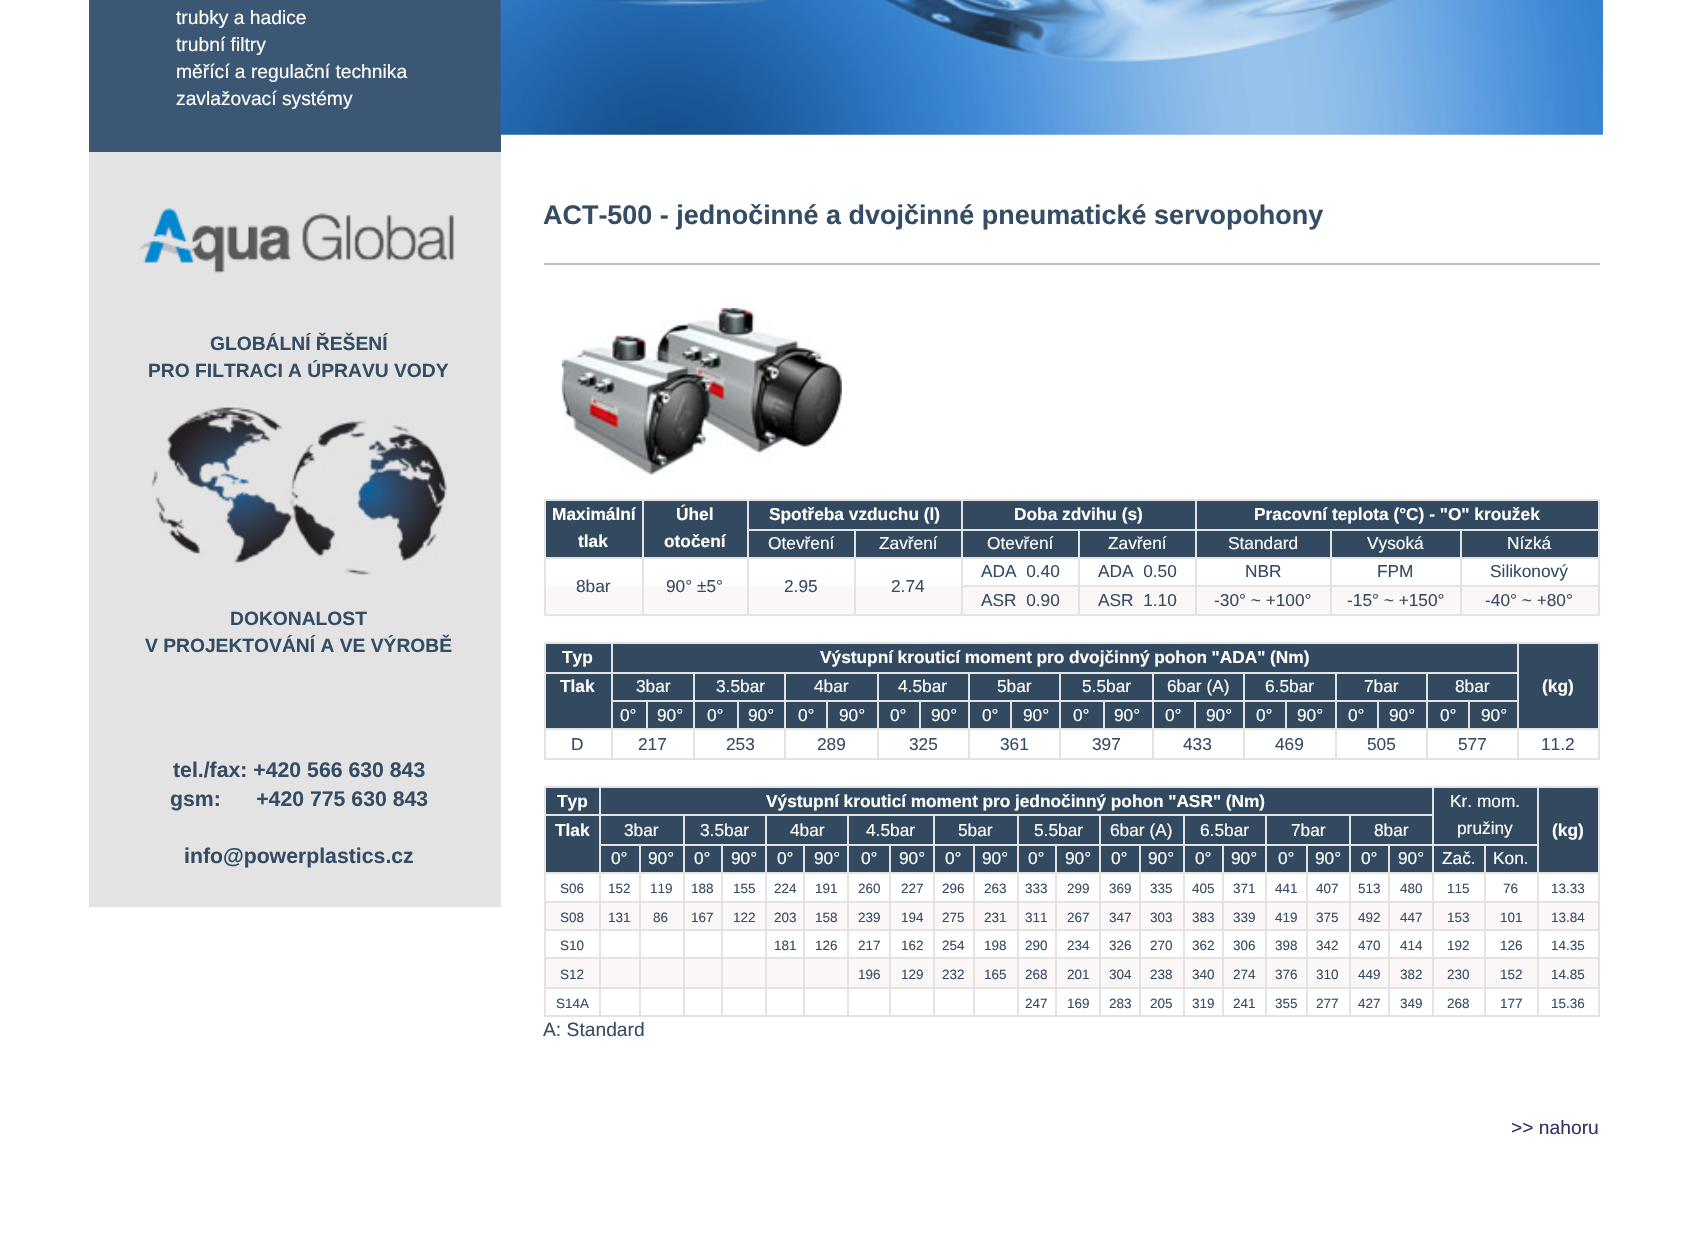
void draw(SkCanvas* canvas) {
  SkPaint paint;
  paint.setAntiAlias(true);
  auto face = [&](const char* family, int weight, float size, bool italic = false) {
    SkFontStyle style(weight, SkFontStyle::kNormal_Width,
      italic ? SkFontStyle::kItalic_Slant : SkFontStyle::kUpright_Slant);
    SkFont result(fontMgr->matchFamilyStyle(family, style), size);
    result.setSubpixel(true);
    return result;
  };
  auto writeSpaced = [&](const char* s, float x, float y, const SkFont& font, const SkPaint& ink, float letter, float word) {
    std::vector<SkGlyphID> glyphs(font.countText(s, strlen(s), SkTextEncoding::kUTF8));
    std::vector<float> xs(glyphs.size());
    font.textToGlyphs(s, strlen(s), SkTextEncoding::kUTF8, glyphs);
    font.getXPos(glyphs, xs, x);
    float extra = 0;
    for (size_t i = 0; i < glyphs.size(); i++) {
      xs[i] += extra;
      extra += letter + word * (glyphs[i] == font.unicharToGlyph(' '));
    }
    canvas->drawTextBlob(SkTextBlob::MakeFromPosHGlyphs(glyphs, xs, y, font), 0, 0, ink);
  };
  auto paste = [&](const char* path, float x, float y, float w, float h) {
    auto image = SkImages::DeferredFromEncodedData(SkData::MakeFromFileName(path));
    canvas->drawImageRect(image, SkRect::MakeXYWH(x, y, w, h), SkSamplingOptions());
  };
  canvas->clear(0xffffffff);
  paint.setColor(0xff3c5773);
  canvas->drawRect(SkRect::MakeXYWH(89, 0, 412, 152), paint);
  paste("img/1.png", 500, 0, 1103, 135);
  paint.setColor(0xffe3e3e3);
  canvas->drawRect(SkRect::MakeXYWH(89, 152, 412, 755), paint);
  paste("img/2.png", 138, 207, 317, 67);
  paste("img/3.png", 151, 407, 296, 168);
  paint.setColor(0xffc0c0c0);
  canvas->drawRect(SkRect::MakeXYWH(544, 263, 1056, 2), paint);
  paste("img/4.png", 561, 308, 281, 167);
  {
    const struct { float x, y, w, h; SkColor color; } items[] = {
      {546, 501, 1052, 56, 0xff32495f},
      {1195, 499, 405, 2, 0xffe3e3e3},
      {1460, 529, 140, 2, 0xffe3e3e3},
      {1460, 557, 140, 2, 0xffe3e3e3},
      {546, 586, 1052, 28, 0xfffcf7f7},
      {1460, 585, 140, 2, 0xffe3e3e3},
      {1598, 585, 2, 31, 0xffe3e3e3},
      {1460, 614, 140, 2, 0xffe3e3e3},
      {1460, 585, 2, 31, 0xffe3e3e3},
      {1330, 585, 131, 2, 0xffe3e3e3},
      {1460, 557, 2, 29, 0xffe3e3e3},
      {1330, 557, 131, 2, 0xffe3e3e3},
      {1460, 529, 2, 29, 0xffe3e3e3},
      {1330, 529, 131, 2, 0xffe3e3e3},
      {1330, 614, 131, 2, 0xffe3e3e3},
      {1330, 585, 2, 31, 0xffe3e3e3},
      {1195, 585, 137, 2, 0xffe3e3e3},
      {1330, 557, 2, 29, 0xffe3e3e3},
      {1195, 557, 137, 2, 0xffe3e3e3},
      {1330, 529, 2, 29, 0xffe3e3e3},
      {1195, 529, 137, 2, 0xffe3e3e3},
      {1195, 614, 137, 2, 0xffe3e3e3},
      {1195, 585, 2, 31, 0xffe3e3e3},
      {1078, 585, 119, 2, 0xffe3e3e3},
      {1195, 557, 2, 29, 0xffe3e3e3},
      {1078, 557, 119, 2, 0xffe3e3e3},
      {1195, 529, 2, 29, 0xffe3e3e3},
      {1078, 529, 119, 2, 0xffe3e3e3},
      {1195, 499, 2, 31, 0xffe3e3e3},
      {961, 499, 236, 2, 0xffe3e3e3},
      {1078, 614, 119, 2, 0xffe3e3e3},
      {1078, 585, 2, 31, 0xffe3e3e3},
      {961, 585, 119, 2, 0xffe3e3e3},
      {1078, 557, 2, 29, 0xffe3e3e3},
      {961, 557, 119, 2, 0xffe3e3e3},
      {1078, 529, 2, 29, 0xffe3e3e3},
      {961, 529, 119, 2, 0xffe3e3e3},
      {961, 614, 119, 2, 0xffe3e3e3},
      {961, 585, 2, 31, 0xffe3e3e3},
      {961, 557, 2, 29, 0xffe3e3e3},
      {854, 557, 109, 2, 0xffe3e3e3},
      {961, 529, 2, 29, 0xffe3e3e3},
      {854, 529, 109, 2, 0xffe3e3e3},
      {961, 499, 2, 31, 0xffe3e3e3},
      {747, 499, 216, 2, 0xffe3e3e3},
      {854, 614, 109, 2, 0xffe3e3e3},
      {854, 557, 2, 59, 0xffe3e3e3},
      {747, 557, 109, 2, 0xffe3e3e3},
      {854, 529, 2, 29, 0xffe3e3e3},
      {747, 529, 109, 2, 0xffe3e3e3},
      {747, 614, 109, 2, 0xffe3e3e3},
      {747, 557, 2, 59, 0xffe3e3e3},
      {642, 557, 107, 2, 0xffe3e3e3},
      {747, 529, 2, 29, 0xffe3e3e3},
      {747, 499, 2, 31, 0xffe3e3e3},
      {642, 499, 107, 2, 0xffe3e3e3},
      {642, 614, 107, 2, 0xffe3e3e3},
      {642, 557, 2, 59, 0xffe3e3e3},
      {544, 557, 100, 2, 0xffe3e3e3},
      {642, 499, 2, 59, 0xffe3e3e3},
      {544, 499, 100, 2, 0xffe3e3e3},
      {544, 614, 100, 2, 0xffe3e3e3},
      {544, 557, 2, 59, 0xffe3e3e3},
      {544, 499, 2, 59, 0xffe3e3e3},
      {1598, 557, 2, 29, 0xffe3e3e3},
      {1598, 529, 2, 29, 0xffe3e3e3},
      {1598, 499, 2, 31, 0xffe3e3e3},
      {546, 644, 1052, 84, 0xff32495f},
      {1517, 642, 83, 2, 0xffe3e3e3},
      {1426, 672, 93, 2, 0xffe3e3e3},
      {1468, 700, 51, 2, 0xffe3e3e3},
      {1517, 728, 83, 2, 0xffe3e3e3},
      {1598, 728, 2, 32, 0xffe3e3e3},
      {1517, 758, 83, 2, 0xffe3e3e3},
      {1517, 728, 2, 32, 0xffe3e3e3},
      {1426, 728, 93, 2, 0xffe3e3e3},
      {1517, 642, 2, 88, 0xffe3e3e3},
      {611, 642, 908, 2, 0xffe3e3e3},
      {1468, 700, 2, 30, 0xffe3e3e3},
      {1426, 700, 44, 2, 0xffe3e3e3},
      {1426, 758, 93, 2, 0xffe3e3e3},
      {1426, 728, 2, 32, 0xffe3e3e3},
      {1335, 728, 93, 2, 0xffe3e3e3},
      {1426, 700, 2, 30, 0xffe3e3e3},
      {1377, 700, 51, 2, 0xffe3e3e3},
      {1426, 672, 2, 30, 0xffe3e3e3},
      {1335, 672, 93, 2, 0xffe3e3e3},
      {1377, 700, 2, 30, 0xffe3e3e3},
      {1335, 700, 44, 2, 0xffe3e3e3},
      {1335, 758, 93, 2, 0xffe3e3e3},
      {1335, 728, 2, 32, 0xffe3e3e3},
      {1243, 728, 94, 2, 0xffe3e3e3},
      {1335, 700, 2, 30, 0xffe3e3e3},
      {1285, 700, 52, 2, 0xffe3e3e3},
      {1335, 672, 2, 30, 0xffe3e3e3},
      {1243, 672, 94, 2, 0xffe3e3e3},
      {1285, 700, 2, 30, 0xffe3e3e3},
      {1243, 700, 43, 2, 0xffe3e3e3},
      {1243, 758, 94, 2, 0xffe3e3e3},
      {1243, 728, 2, 32, 0xffe3e3e3},
      {1152, 728, 92, 2, 0xffe3e3e3},
      {1243, 700, 2, 30, 0xffe3e3e3},
      {1194, 700, 50, 2, 0xffe3e3e3},
      {1243, 672, 2, 30, 0xffe3e3e3},
      {1152, 672, 92, 2, 0xffe3e3e3},
      {1194, 700, 2, 30, 0xffe3e3e3},
      {1152, 700, 43, 2, 0xffe3e3e3},
      {1152, 758, 92, 2, 0xffe3e3e3},
      {1152, 728, 2, 32, 0xffe3e3e3},
      {1059, 728, 94, 2, 0xffe3e3e3},
      {1152, 700, 2, 30, 0xffe3e3e3},
      {1103, 700, 50, 2, 0xffe3e3e3},
      {1152, 672, 2, 30, 0xffe3e3e3},
      {1059, 672, 94, 2, 0xffe3e3e3},
      {1103, 700, 2, 30, 0xffe3e3e3},
      {1059, 700, 45, 2, 0xffe3e3e3},
      {1059, 758, 94, 2, 0xffe3e3e3},
      {1059, 728, 2, 32, 0xffe3e3e3},
      {968, 728, 93, 2, 0xffe3e3e3},
      {1059, 700, 2, 30, 0xffe3e3e3},
      {1010, 700, 51, 2, 0xffe3e3e3},
      {1059, 672, 2, 30, 0xffe3e3e3},
      {968, 672, 93, 2, 0xffe3e3e3},
      {1010, 700, 2, 30, 0xffe3e3e3},
      {968, 700, 44, 2, 0xffe3e3e3},
      {968, 758, 93, 2, 0xffe3e3e3},
      {968, 728, 2, 32, 0xffe3e3e3},
      {877, 728, 93, 2, 0xffe3e3e3},
      {968, 700, 2, 30, 0xffe3e3e3},
      {919, 700, 51, 2, 0xffe3e3e3},
      {968, 672, 2, 30, 0xffe3e3e3},
      {877, 672, 93, 2, 0xffe3e3e3},
      {919, 700, 2, 30, 0xffe3e3e3},
      {877, 700, 44, 2, 0xffe3e3e3},
      {877, 758, 93, 2, 0xffe3e3e3},
      {877, 728, 2, 32, 0xffe3e3e3},
      {784, 728, 95, 2, 0xffe3e3e3},
      {877, 700, 2, 30, 0xffe3e3e3},
      {826, 700, 53, 2, 0xffe3e3e3},
      {877, 672, 2, 30, 0xffe3e3e3},
      {784, 672, 95, 2, 0xffe3e3e3},
      {826, 700, 2, 30, 0xffe3e3e3},
      {784, 700, 44, 2, 0xffe3e3e3},
      {784, 758, 95, 2, 0xffe3e3e3},
      {784, 728, 2, 32, 0xffe3e3e3},
      {693, 728, 93, 2, 0xffe3e3e3},
      {784, 700, 2, 30, 0xffe3e3e3},
      {737, 700, 49, 2, 0xffe3e3e3},
      {784, 672, 2, 30, 0xffe3e3e3},
      {693, 672, 93, 2, 0xffe3e3e3},
      {737, 700, 2, 30, 0xffe3e3e3},
      {693, 700, 46, 2, 0xffe3e3e3},
      {693, 758, 93, 2, 0xffe3e3e3},
      {693, 728, 2, 32, 0xffe3e3e3},
      {611, 728, 84, 2, 0xffe3e3e3},
      {693, 700, 2, 30, 0xffe3e3e3},
      {646, 700, 49, 2, 0xffe3e3e3},
      {693, 672, 2, 30, 0xffe3e3e3},
      {611, 672, 84, 2, 0xffe3e3e3},
      {646, 700, 2, 30, 0xffe3e3e3},
      {611, 700, 37, 2, 0xffe3e3e3},
      {611, 758, 84, 2, 0xffe3e3e3},
      {611, 728, 2, 32, 0xffe3e3e3},
      {544, 728, 69, 2, 0xffe3e3e3},
      {611, 700, 2, 30, 0xffe3e3e3},
      {611, 672, 2, 30, 0xffe3e3e3},
      {544, 672, 69, 2, 0xffe3e3e3},
      {611, 642, 2, 32, 0xffe3e3e3},
      {544, 642, 69, 2, 0xffe3e3e3},
      {544, 758, 69, 2, 0xffe3e3e3},
      {544, 728, 2, 32, 0xffe3e3e3},
      {544, 672, 2, 58, 0xffe3e3e3},
      {544, 642, 2, 32, 0xffe3e3e3},
      {1598, 642, 2, 88, 0xffe3e3e3},
      {546, 788, 1052, 84, 0xff32495f},
      {1537, 786, 63, 2, 0xffe3e3e3},
      {1484, 844, 54, 2, 0xffe3e3e3},
      {1537, 872, 63, 2, 0xffe3e3e3},
      {1537, 901, 63, 2, 0xffe3e3e3},
      {546, 903, 1052, 26, 0xfffcf7f7},
      {1537, 929, 63, 2, 0xffe3e3e3},
      {1537, 957, 63, 2, 0xffe3e3e3},
      {546, 959, 1052, 28, 0xfffcf7f7},
      {1537, 987, 63, 2, 0xffe3e3e3},
      {1598, 987, 2, 30, 0xffe3e3e3},
      {1537, 1015, 63, 2, 0xffe3e3e3},
      {1537, 987, 2, 30, 0xffe3e3e3},
      {1484, 987, 54, 2, 0xffe3e3e3},
      {1537, 957, 2, 32, 0xffe3e3e3},
      {1484, 957, 54, 2, 0xffe3e3e3},
      {1537, 929, 2, 30, 0xffe3e3e3},
      {1484, 929, 54, 2, 0xffe3e3e3},
      {1537, 901, 2, 30, 0xffe3e3e3},
      {1484, 901, 54, 2, 0xffe3e3e3},
      {1537, 872, 2, 31, 0xffe3e3e3},
      {1484, 872, 54, 2, 0xffe3e3e3},
      {1537, 786, 2, 87, 0xffe3e3e3},
      {1432, 786, 106, 2, 0xffe3e3e3},
      {1349, 814, 84, 2, 0xffe3e3e3},
      {1484, 1015, 54, 2, 0xffe3e3e3},
      {1484, 987, 2, 30, 0xffe3e3e3},
      {1432, 987, 54, 2, 0xffe3e3e3},
      {1484, 957, 2, 32, 0xffe3e3e3},
      {1432, 957, 54, 2, 0xffe3e3e3},
      {1484, 929, 2, 30, 0xffe3e3e3},
      {1432, 929, 54, 2, 0xffe3e3e3},
      {1484, 901, 2, 30, 0xffe3e3e3},
      {1432, 901, 54, 2, 0xffe3e3e3},
      {1484, 872, 2, 31, 0xffe3e3e3},
      {1432, 872, 54, 2, 0xffe3e3e3},
      {1484, 844, 2, 29, 0xffe3e3e3},
      {1432, 844, 54, 2, 0xffe3e3e3},
      {1432, 1015, 54, 2, 0xffe3e3e3},
      {1432, 987, 2, 30, 0xffe3e3e3},
      {1388, 987, 45, 2, 0xffe3e3e3},
      {1432, 957, 2, 32, 0xffe3e3e3},
      {1388, 957, 45, 2, 0xffe3e3e3},
      {1432, 929, 2, 30, 0xffe3e3e3},
      {1388, 929, 45, 2, 0xffe3e3e3},
      {1432, 901, 2, 30, 0xffe3e3e3},
      {1388, 901, 45, 2, 0xffe3e3e3},
      {1432, 872, 2, 31, 0xffe3e3e3},
      {1388, 872, 45, 2, 0xffe3e3e3},
      {1432, 844, 2, 29, 0xffe3e3e3},
      {1388, 844, 45, 2, 0xffe3e3e3},
      {1432, 786, 2, 59, 0xffe3e3e3},
      {599, 786, 834, 2, 0xffe3e3e3},
      {1388, 1015, 45, 2, 0xffe3e3e3},
      {1388, 987, 2, 30, 0xffe3e3e3},
      {1349, 987, 41, 2, 0xffe3e3e3},
      {1388, 957, 2, 32, 0xffe3e3e3},
      {1349, 957, 41, 2, 0xffe3e3e3},
      {1388, 929, 2, 30, 0xffe3e3e3},
      {1349, 929, 41, 2, 0xffe3e3e3},
      {1388, 901, 2, 30, 0xffe3e3e3},
      {1349, 901, 41, 2, 0xffe3e3e3},
      {1388, 872, 2, 31, 0xffe3e3e3},
      {1349, 872, 41, 2, 0xffe3e3e3},
      {1388, 844, 2, 29, 0xffe3e3e3},
      {1349, 844, 41, 2, 0xffe3e3e3},
      {1349, 1015, 41, 2, 0xffe3e3e3},
      {1349, 987, 2, 30, 0xffe3e3e3},
      {1306, 987, 45, 2, 0xffe3e3e3},
      {1349, 957, 2, 32, 0xffe3e3e3},
      {1306, 957, 45, 2, 0xffe3e3e3},
      {1349, 929, 2, 30, 0xffe3e3e3},
      {1306, 929, 45, 2, 0xffe3e3e3},
      {1349, 901, 2, 30, 0xffe3e3e3},
      {1306, 901, 45, 2, 0xffe3e3e3},
      {1349, 872, 2, 31, 0xffe3e3e3},
      {1306, 872, 45, 2, 0xffe3e3e3},
      {1349, 844, 2, 29, 0xffe3e3e3},
      {1306, 844, 45, 2, 0xffe3e3e3},
      {1349, 814, 2, 31, 0xffe3e3e3},
      {1265, 814, 86, 2, 0xffe3e3e3},
      {1306, 1015, 45, 2, 0xffe3e3e3},
      {1306, 987, 2, 30, 0xffe3e3e3},
      {1265, 987, 42, 2, 0xffe3e3e3},
      {1306, 957, 2, 32, 0xffe3e3e3},
      {1265, 957, 42, 2, 0xffe3e3e3},
      {1306, 929, 2, 30, 0xffe3e3e3},
      {1265, 929, 42, 2, 0xffe3e3e3},
      {1306, 901, 2, 30, 0xffe3e3e3},
      {1265, 901, 42, 2, 0xffe3e3e3},
      {1306, 872, 2, 31, 0xffe3e3e3},
      {1265, 872, 42, 2, 0xffe3e3e3},
      {1306, 844, 2, 29, 0xffe3e3e3},
      {1265, 844, 42, 2, 0xffe3e3e3},
      {1265, 1015, 42, 2, 0xffe3e3e3},
      {1265, 987, 2, 30, 0xffe3e3e3},
      {1222, 987, 45, 2, 0xffe3e3e3},
      {1265, 957, 2, 32, 0xffe3e3e3},
      {1222, 957, 45, 2, 0xffe3e3e3},
      {1265, 929, 2, 30, 0xffe3e3e3},
      {1222, 929, 45, 2, 0xffe3e3e3},
      {1265, 901, 2, 30, 0xffe3e3e3},
      {1222, 901, 45, 2, 0xffe3e3e3},
      {1265, 872, 2, 31, 0xffe3e3e3},
      {1222, 872, 45, 2, 0xffe3e3e3},
      {1265, 844, 2, 29, 0xffe3e3e3},
      {1222, 844, 45, 2, 0xffe3e3e3},
      {1265, 814, 2, 31, 0xffe3e3e3},
      {1183, 814, 84, 2, 0xffe3e3e3},
      {1222, 1015, 45, 2, 0xffe3e3e3},
      {1222, 987, 2, 30, 0xffe3e3e3},
      {1183, 987, 40, 2, 0xffe3e3e3},
      {1222, 957, 2, 32, 0xffe3e3e3},
      {1183, 957, 40, 2, 0xffe3e3e3},
      {1222, 929, 2, 30, 0xffe3e3e3},
      {1183, 929, 40, 2, 0xffe3e3e3},
      {1222, 901, 2, 30, 0xffe3e3e3},
      {1183, 901, 40, 2, 0xffe3e3e3},
      {1222, 872, 2, 31, 0xffe3e3e3},
      {1183, 872, 40, 2, 0xffe3e3e3},
      {1222, 844, 2, 29, 0xffe3e3e3},
      {1183, 844, 40, 2, 0xffe3e3e3},
      {1183, 1015, 40, 2, 0xffe3e3e3},
      {1183, 987, 2, 30, 0xffe3e3e3},
      {1139, 987, 46, 2, 0xffe3e3e3},
      {1183, 957, 2, 32, 0xffe3e3e3},
      {1139, 957, 46, 2, 0xffe3e3e3},
      {1183, 929, 2, 30, 0xffe3e3e3},
      {1139, 929, 46, 2, 0xffe3e3e3},
      {1183, 901, 2, 30, 0xffe3e3e3},
      {1139, 901, 46, 2, 0xffe3e3e3},
      {1183, 872, 2, 31, 0xffe3e3e3},
      {1139, 872, 46, 2, 0xffe3e3e3},
      {1183, 844, 2, 29, 0xffe3e3e3},
      {1139, 844, 46, 2, 0xffe3e3e3},
      {1183, 814, 2, 31, 0xffe3e3e3},
      {1099, 814, 86, 2, 0xffe3e3e3},
      {1139, 1015, 46, 2, 0xffe3e3e3},
      {1139, 987, 2, 30, 0xffe3e3e3},
      {1099, 987, 42, 2, 0xffe3e3e3},
      {1139, 957, 2, 32, 0xffe3e3e3},
      {1099, 957, 42, 2, 0xffe3e3e3},
      {1139, 929, 2, 30, 0xffe3e3e3},
      {1099, 929, 42, 2, 0xffe3e3e3},
      {1139, 901, 2, 30, 0xffe3e3e3},
      {1099, 901, 42, 2, 0xffe3e3e3},
      {1139, 872, 2, 31, 0xffe3e3e3},
      {1099, 872, 42, 2, 0xffe3e3e3},
      {1139, 844, 2, 29, 0xffe3e3e3},
      {1099, 844, 42, 2, 0xffe3e3e3},
      {1099, 1015, 42, 2, 0xffe3e3e3},
      {1099, 987, 2, 30, 0xffe3e3e3},
      {1055, 987, 46, 2, 0xffe3e3e3},
      {1099, 957, 2, 32, 0xffe3e3e3},
      {1055, 957, 46, 2, 0xffe3e3e3},
      {1099, 929, 2, 30, 0xffe3e3e3},
      {1055, 929, 46, 2, 0xffe3e3e3},
      {1099, 901, 2, 30, 0xffe3e3e3},
      {1055, 901, 46, 2, 0xffe3e3e3},
      {1099, 872, 2, 31, 0xffe3e3e3},
      {1055, 872, 46, 2, 0xffe3e3e3},
      {1099, 844, 2, 29, 0xffe3e3e3},
      {1055, 844, 46, 2, 0xffe3e3e3},
      {1099, 814, 2, 31, 0xffe3e3e3},
      {1017, 814, 84, 2, 0xffe3e3e3},
      {1055, 1015, 46, 2, 0xffe3e3e3},
      {1055, 987, 2, 30, 0xffe3e3e3},
      {1017, 987, 40, 2, 0xffe3e3e3},
      {1055, 957, 2, 32, 0xffe3e3e3},
      {1017, 957, 40, 2, 0xffe3e3e3},
      {1055, 929, 2, 30, 0xffe3e3e3},
      {1017, 929, 40, 2, 0xffe3e3e3},
      {1055, 901, 2, 30, 0xffe3e3e3},
      {1017, 901, 40, 2, 0xffe3e3e3},
      {1055, 872, 2, 31, 0xffe3e3e3},
      {1017, 872, 40, 2, 0xffe3e3e3},
      {1055, 844, 2, 29, 0xffe3e3e3},
      {1017, 844, 40, 2, 0xffe3e3e3},
      {1017, 1015, 40, 2, 0xffe3e3e3},
      {1017, 987, 2, 30, 0xffe3e3e3},
      {973, 987, 46, 2, 0xffe3e3e3},
      {1017, 957, 2, 32, 0xffe3e3e3},
      {973, 957, 46, 2, 0xffe3e3e3},
      {1017, 929, 2, 30, 0xffe3e3e3},
      {973, 929, 46, 2, 0xffe3e3e3},
      {1017, 901, 2, 30, 0xffe3e3e3},
      {973, 901, 46, 2, 0xffe3e3e3},
      {1017, 872, 2, 31, 0xffe3e3e3},
      {973, 872, 46, 2, 0xffe3e3e3},
      {1017, 844, 2, 29, 0xffe3e3e3},
      {973, 844, 46, 2, 0xffe3e3e3},
      {1017, 814, 2, 31, 0xffe3e3e3},
      {933, 814, 86, 2, 0xffe3e3e3},
      {973, 1015, 46, 2, 0xffe3e3e3},
      {973, 987, 2, 30, 0xffe3e3e3},
      {933, 987, 42, 2, 0xffe3e3e3},
      {973, 957, 2, 32, 0xffe3e3e3},
      {933, 957, 42, 2, 0xffe3e3e3},
      {973, 929, 2, 30, 0xffe3e3e3},
      {933, 929, 42, 2, 0xffe3e3e3},
      {973, 901, 2, 30, 0xffe3e3e3},
      {933, 901, 42, 2, 0xffe3e3e3},
      {973, 872, 2, 31, 0xffe3e3e3},
      {933, 872, 42, 2, 0xffe3e3e3},
      {973, 844, 2, 29, 0xffe3e3e3},
      {933, 844, 42, 2, 0xffe3e3e3},
      {933, 1015, 42, 2, 0xffe3e3e3},
      {933, 987, 2, 30, 0xffe3e3e3},
      {889, 987, 46, 2, 0xffe3e3e3},
      {933, 957, 2, 32, 0xffe3e3e3},
      {889, 957, 46, 2, 0xffe3e3e3},
      {933, 929, 2, 30, 0xffe3e3e3},
      {889, 929, 46, 2, 0xffe3e3e3},
      {933, 901, 2, 30, 0xffe3e3e3},
      {889, 901, 46, 2, 0xffe3e3e3},
      {933, 872, 2, 31, 0xffe3e3e3},
      {889, 872, 46, 2, 0xffe3e3e3},
      {933, 844, 2, 29, 0xffe3e3e3},
      {889, 844, 46, 2, 0xffe3e3e3},
      {933, 814, 2, 31, 0xffe3e3e3},
      {847, 814, 88, 2, 0xffe3e3e3},
      {889, 1015, 46, 2, 0xffe3e3e3},
      {889, 987, 2, 30, 0xffe3e3e3},
      {847, 987, 44, 2, 0xffe3e3e3},
      {889, 957, 2, 32, 0xffe3e3e3},
      {847, 957, 44, 2, 0xffe3e3e3},
      {889, 929, 2, 30, 0xffe3e3e3},
      {847, 929, 44, 2, 0xffe3e3e3},
      {889, 901, 2, 30, 0xffe3e3e3},
      {847, 901, 44, 2, 0xffe3e3e3},
      {889, 872, 2, 31, 0xffe3e3e3},
      {847, 872, 44, 2, 0xffe3e3e3},
      {889, 844, 2, 29, 0xffe3e3e3},
      {847, 844, 44, 2, 0xffe3e3e3},
      {847, 1015, 44, 2, 0xffe3e3e3},
      {847, 987, 2, 30, 0xffe3e3e3},
      {803, 987, 46, 2, 0xffe3e3e3},
      {847, 957, 2, 32, 0xffe3e3e3},
      {803, 957, 46, 2, 0xffe3e3e3},
      {847, 929, 2, 30, 0xffe3e3e3},
      {803, 929, 46, 2, 0xffe3e3e3},
      {847, 901, 2, 30, 0xffe3e3e3},
      {803, 901, 46, 2, 0xffe3e3e3},
      {847, 872, 2, 31, 0xffe3e3e3},
      {803, 872, 46, 2, 0xffe3e3e3},
      {847, 844, 2, 29, 0xffe3e3e3},
      {803, 844, 46, 2, 0xffe3e3e3},
      {847, 814, 2, 31, 0xffe3e3e3},
      {765, 814, 84, 2, 0xffe3e3e3},
      {803, 1015, 46, 2, 0xffe3e3e3},
      {803, 987, 2, 30, 0xffe3e3e3},
      {765, 987, 40, 2, 0xffe3e3e3},
      {803, 957, 2, 32, 0xffe3e3e3},
      {765, 957, 40, 2, 0xffe3e3e3},
      {803, 929, 2, 30, 0xffe3e3e3},
      {765, 929, 40, 2, 0xffe3e3e3},
      {803, 901, 2, 30, 0xffe3e3e3},
      {765, 901, 40, 2, 0xffe3e3e3},
      {803, 872, 2, 31, 0xffe3e3e3},
      {765, 872, 40, 2, 0xffe3e3e3},
      {803, 844, 2, 29, 0xffe3e3e3},
      {765, 844, 40, 2, 0xffe3e3e3},
      {765, 1015, 40, 2, 0xffe3e3e3},
      {765, 987, 2, 30, 0xffe3e3e3},
      {721, 987, 46, 2, 0xffe3e3e3},
      {765, 957, 2, 32, 0xffe3e3e3},
      {721, 957, 46, 2, 0xffe3e3e3},
      {765, 929, 2, 30, 0xffe3e3e3},
      {721, 929, 46, 2, 0xffe3e3e3},
      {765, 901, 2, 30, 0xffe3e3e3},
      {721, 901, 46, 2, 0xffe3e3e3},
      {765, 872, 2, 31, 0xffe3e3e3},
      {721, 872, 46, 2, 0xffe3e3e3},
      {765, 844, 2, 29, 0xffe3e3e3},
      {721, 844, 46, 2, 0xffe3e3e3},
      {765, 814, 2, 31, 0xffe3e3e3},
      {683, 814, 84, 2, 0xffe3e3e3},
      {721, 1015, 46, 2, 0xffe3e3e3},
      {721, 987, 2, 30, 0xffe3e3e3},
      {683, 987, 40, 2, 0xffe3e3e3},
      {721, 957, 2, 32, 0xffe3e3e3},
      {683, 957, 40, 2, 0xffe3e3e3},
      {721, 929, 2, 30, 0xffe3e3e3},
      {683, 929, 40, 2, 0xffe3e3e3},
      {721, 901, 2, 30, 0xffe3e3e3},
      {683, 901, 40, 2, 0xffe3e3e3},
      {721, 872, 2, 31, 0xffe3e3e3},
      {683, 872, 40, 2, 0xffe3e3e3},
      {721, 844, 2, 29, 0xffe3e3e3},
      {683, 844, 40, 2, 0xffe3e3e3},
      {683, 1015, 40, 2, 0xffe3e3e3},
      {683, 987, 2, 30, 0xffe3e3e3},
      {639, 987, 45, 2, 0xffe3e3e3},
      {683, 957, 2, 32, 0xffe3e3e3},
      {639, 957, 45, 2, 0xffe3e3e3},
      {683, 929, 2, 30, 0xffe3e3e3},
      {639, 929, 45, 2, 0xffe3e3e3},
      {683, 901, 2, 30, 0xffe3e3e3},
      {639, 901, 45, 2, 0xffe3e3e3},
      {683, 872, 2, 31, 0xffe3e3e3},
      {639, 872, 45, 2, 0xffe3e3e3},
      {683, 844, 2, 29, 0xffe3e3e3},
      {639, 844, 45, 2, 0xffe3e3e3},
      {683, 814, 2, 31, 0xffe3e3e3},
      {599, 814, 85, 2, 0xffe3e3e3},
      {639, 1015, 45, 2, 0xffe3e3e3},
      {639, 987, 2, 30, 0xffe3e3e3},
      {599, 987, 42, 2, 0xffe3e3e3},
      {639, 957, 2, 32, 0xffe3e3e3},
      {599, 957, 42, 2, 0xffe3e3e3},
      {639, 929, 2, 30, 0xffe3e3e3},
      {599, 929, 42, 2, 0xffe3e3e3},
      {639, 901, 2, 30, 0xffe3e3e3},
      {599, 901, 42, 2, 0xffe3e3e3},
      {639, 872, 2, 31, 0xffe3e3e3},
      {599, 872, 42, 2, 0xffe3e3e3},
      {639, 844, 2, 29, 0xffe3e3e3},
      {599, 844, 42, 2, 0xffe3e3e3},
      {599, 1015, 42, 2, 0xffe3e3e3},
      {599, 987, 2, 30, 0xffe3e3e3},
      {544, 987, 56, 2, 0xffe3e3e3},
      {599, 957, 2, 32, 0xffe3e3e3},
      {544, 957, 56, 2, 0xffe3e3e3},
      {599, 929, 2, 30, 0xffe3e3e3},
      {544, 929, 56, 2, 0xffe3e3e3},
      {599, 901, 2, 30, 0xffe3e3e3},
      {544, 901, 56, 2, 0xffe3e3e3},
      {599, 872, 2, 31, 0xffe3e3e3},
      {544, 872, 56, 2, 0xffe3e3e3},
      {599, 844, 2, 29, 0xffe3e3e3},
      {599, 814, 2, 31, 0xffe3e3e3},
      {544, 814, 56, 2, 0xffe3e3e3},
      {599, 786, 2, 30, 0xffe3e3e3},
      {544, 786, 56, 2, 0xffe3e3e3},
      {544, 1015, 56, 2, 0xffe3e3e3},
      {544, 987, 2, 30, 0xffe3e3e3},
      {544, 957, 2, 32, 0xffe3e3e3},
      {544, 929, 2, 30, 0xffe3e3e3},
      {544, 901, 2, 30, 0xffe3e3e3},
      {544, 872, 2, 31, 0xffe3e3e3},
      {544, 814, 2, 59, 0xffe3e3e3},
      {544, 786, 2, 30, 0xffe3e3e3},
      {1598, 957, 2, 32, 0xffe3e3e3},
      {1598, 929, 2, 30, 0xffe3e3e3},
      {1598, 901, 2, 30, 0xffe3e3e3},
      {1598, 872, 2, 31, 0xffe3e3e3},
      {1598, 786, 2, 87, 0xffe3e3e3},
    };
    for (auto [x, y, w, h, color] : items) {
      paint.setColor(color);
      canvas->drawRect(SkRect::MakeXYWH(x, y, w, h), paint);
    }
  }
  auto f0 = face("Liberation Sans", 400, 19.25f);
  paint.setColor(0xffffffff);
  {
    const struct { const char* s; float x, y; } items[] = {
      {"trubky a hadice", 176, 24},
      {"trubní filtry", 176, 51},
      {"měřící a regulační technika", 176, 78},
      {"zavlažovací systémy", 176, 105},
    };
    for (auto [s, x, y] : items) {
      canvas->drawString(s, x, y, f0, paint);
    }
  }
  auto f1 = face("Liberation Sans", 700, 19.25f);
  paint.setColor(0xff344c64);
  {
    const struct { const char* s; float x, y; } items[] = {
      {"GLOBÁLNÍ ŘEŠENÍ", 210, 350},
      {"PRO FILTRACI A ÚPRAVU VODY", 148, 377},
      {"DOKONALOST", 230, 625},
      {"V PROJEKTOVÁNÍ A VE VÝROBĚ", 145, 652},
    };
    for (auto [s, x, y] : items) {
      canvas->drawString(s, x, y, f1, paint);
    }
  }
  auto f2 = face("Liberation Sans", 700, 21.25f);
  {
    const struct { const char* s; float x, y; } items[] = {
      {"tel./fax: +420 566 630 843", 173, 777},
      {"gsm:      +420 775 630 843", 170, 806},
      {"info@powerplastics.cz", 184, 863},
    };
    for (auto [s, x, y] : items) {
      canvas->drawString(s, x, y, f2, paint);
    }
  }
  auto f3 = face("Liberation Sans", 700, 26.95f);
  canvas->drawString("ACT-500 - jednočinné a dvojčinné pneumatické servopohony", 543, 224, f3, paint);
  auto f4 = face("Liberation Sans", 700, 17.3f);
  paint.setColor(0xffffffff);
  {
    const struct { const char* s; float x, y; } items[] = {
      {"Maximální", 552, 520},
      {"tlak", 578, 547},
      {"Úhel", 676, 520},
      {"otočení", 664, 547},
      {"Spotřeba vzduchu (l)", 769, 520},
      {"Doba zdvihu (s)", 1014, 520},
      {"Pracovní teplota (°C) - \"O\" kroužek", 1254, 520},
    };
    for (auto [s, x, y] : items) {
      canvas->drawString(s, x, y, f4, paint);
    }
  }
  auto f5 = face("Liberation Sans", 400, 17.3f);
  {
    const struct { const char* s; float x, y; } items[] = {
      {"Otevření", 768, 549},
      {"Zavření", 879, 549},
      {"Otevření", 987, 549},
      {"Zavření", 1108, 549},
      {"Standard", 1228, 549},
      {"Vysoká", 1367, 549},
      {"Nízká", 1507, 549},
    };
    for (auto [s, x, y] : items) {
      canvas->drawString(s, x, y, f5, paint);
    }
  }
  paint.setColor(0xff344c64);
  {
    const struct { const char* s; float x, y; } items[] = {
      {"ADA  0.40", 981, 577},
      {"ADA  0.50", 1098, 577},
      {"NBR", 1245, 577},
      {"FPM", 1377, 577},
      {"Silikonový", 1490, 577},
      {"8bar", 576, 592},
      {"90° ±5°", 666, 592},
      {"2.95", 784, 592},
      {"2.74", 891, 592},
      {"ASR  0.90", 981, 606},
      {"ASR  1.10", 1098, 606},
      {"-30° ~ +100°", 1214, 606},
      {"-15° ~ +150°", 1347, 606},
      {"-40° ~ +80°", 1485, 606},
    };
    for (auto [s, x, y] : items) {
      canvas->drawString(s, x, y, f5, paint);
    }
  }
  paint.setColor(0xffffffff);
  canvas->drawString("Typ", 562, 663, f4, paint);
  writeSpaced("Výstupní krouticí moment pro dvojčinný pohon \"ADA\" (Nm)", 820, 663, f4, paint, 0, -0.25f);
  canvas->drawString("(kg)", 1542, 692, f4, paint);
  canvas->drawString("Tlak", 560, 692, f4, paint);
  {
    const struct { const char* s; float x, y; } items[] = {
      {"3bar", 636, 692},
      {"3.5bar", 716, 692},
      {"4bar", 814, 692},
      {"4.5bar", 898, 692},
      {"5bar", 997, 692},
      {"5.5bar", 1082, 692},
      {"6bar (A)", 1167, 692},
      {"6.5bar", 1265, 692},
      {"7bar", 1364, 692},
      {"8bar", 1455, 692},
      {"0°", 620, 721},
      {"90°", 657, 721},
      {"0°", 707, 721},
      {"90°", 748, 721},
      {"0°", 798, 721},
      {"90°", 839, 721},
      {"0°", 890, 721},
      {"90°", 931, 721},
      {"0°", 982, 721},
      {"90°", 1023, 721},
      {"0°", 1073, 721},
      {"90°", 1114, 721},
      {"0°", 1165, 721},
      {"90°", 1206, 721},
      {"0°", 1256, 721},
      {"90°", 1297, 721},
      {"0°", 1348, 721},
      {"90°", 1389, 721},
      {"0°", 1440, 721},
      {"90°", 1481, 721},
    };
    for (auto [s, x, y] : items) {
      canvas->drawString(s, x, y, f5, paint);
    }
  }
  paint.setColor(0xff344c64);
  {
    const struct { const char* s; float x, y; } items[] = {
      {"D", 571, 750},
      {"217", 638, 750},
      {"253", 726, 750},
      {"289", 817, 750},
      {"325", 909, 750},
      {"361", 1000, 750},
      {"397", 1092, 750},
      {"433", 1183, 750},
      {"469", 1275, 750},
      {"505", 1367, 750},
      {"577", 1458, 750},
      {"11.2", 1541, 750},
    };
    for (auto [s, x, y] : items) {
      canvas->drawString(s, x, y, f5, paint);
    }
  }
  paint.setColor(0xffffffff);
  canvas->drawString("Typ", 557, 807, f4, paint);
  writeSpaced("Výstupní krouticí moment pro jednočinný pohon \"ASR\" (Nm)", 766, 807, f4, paint, 0, -0.25f);
  canvas->drawString("Kr. mom.", 1450, 807, f5, paint);
  canvas->drawString("pružiny", 1457, 834, f5, paint);
  canvas->drawString("(kg)", 1552, 836, f4, paint);
  canvas->drawString("Tlak", 555, 836, f4, paint);
  {
    const struct { const char* s; float x, y; } items[] = {
      {"3bar", 624, 836},
      {"3.5bar", 700, 836},
      {"4bar", 790, 836},
      {"4.5bar", 866, 836},
      {"5bar", 958, 836},
      {"5.5bar", 1034, 836},
      {"6bar (A)", 1110, 836},
      {"6.5bar", 1200, 836},
      {"7bar", 1291, 836},
      {"8bar", 1374, 836},
      {"0°", 611, 864},
      {"90°", 648, 864},
      {"0°", 694, 864},
      {"90°", 731, 864},
      {"0°", 777, 864},
      {"90°", 814, 864},
      {"0°", 861, 864},
      {"90°", 899, 864},
      {"0°", 945, 864},
      {"90°", 982, 864},
      {"0°", 1028, 864},
      {"90°", 1065, 864},
      {"0°", 1111, 864},
      {"90°", 1148, 864},
      {"0°", 1195, 864},
      {"90°", 1231, 864},
      {"0°", 1278, 864},
      {"90°", 1315, 864},
      {"0°", 1361, 864},
      {"90°", 1398, 864},
      {"Zač.", 1442, 864},
      {"Kon.", 1493, 864},
    };
    for (auto [s, x, y] : items) {
      canvas->drawString(s, x, y, f5, paint);
    }
  }
  auto f6 = face("Liberation Sans", 400, 13.5f);
  paint.setColor(0xff344c64);
  {
    const struct { const char* s; float x, y; } items[] = {
      {"S06", 560, 893},
      {"152", 608, 893},
      {"119", 650, 893},
      {"188", 691, 893},
      {"155", 733, 893},
      {"224", 774, 893},
      {"191", 815, 893},
      {"260", 858, 893},
      {"227", 901, 893},
      {"296", 942, 893},
      {"263", 984, 893},
      {"333", 1025, 893},
      {"299", 1067, 893},
      {"369", 1109, 893},
      {"335", 1150, 893},
      {"405", 1192, 893},
      {"371", 1233, 893},
      {"441", 1275, 893},
      {"407", 1316, 893},
      {"513", 1358, 893},
      {"480", 1400, 893},
      {"115", 1447, 893},
      {"76", 1503, 893},
      {"13.33", 1551, 893},
      {"S08", 560, 922},
      {"131", 608, 922},
      {"86", 653, 922},
      {"167", 691, 922},
      {"122", 733, 922},
      {"203", 774, 922},
      {"158", 815, 922},
      {"239", 858, 922},
      {"194", 901, 922},
      {"275", 942, 922},
      {"231", 984, 922},
      {"311", 1025, 922},
      {"267", 1067, 922},
      {"347", 1109, 922},
      {"303", 1150, 922},
      {"383", 1192, 922},
      {"339", 1233, 922},
      {"419", 1275, 922},
      {"375", 1316, 922},
      {"492", 1358, 922},
      {"447", 1400, 922},
      {"153", 1447, 922},
      {"101", 1500, 922},
      {"13.84", 1551, 922},
      {"S10", 560, 950},
      {"181", 774, 950},
      {"126", 815, 950},
      {"217", 858, 950},
      {"162", 901, 950},
      {"254", 942, 950},
      {"198", 984, 950},
      {"290", 1025, 950},
      {"234", 1067, 950},
      {"326", 1109, 950},
      {"270", 1150, 950},
      {"362", 1192, 950},
      {"306", 1233, 950},
      {"398", 1275, 950},
      {"342", 1316, 950},
      {"470", 1358, 950},
      {"414", 1400, 950},
      {"192", 1447, 950},
      {"126", 1500, 950},
      {"14.35", 1551, 950},
      {"S12", 560, 979},
      {"196", 858, 979},
      {"129", 901, 979},
      {"232", 942, 979},
      {"165", 984, 979},
      {"268", 1025, 979},
      {"201", 1067, 979},
      {"304", 1109, 979},
      {"238", 1150, 979},
      {"340", 1192, 979},
      {"274", 1233, 979},
      {"376", 1275, 979},
      {"310", 1316, 979},
      {"449", 1358, 979},
      {"382", 1400, 979},
      {"230", 1447, 979},
      {"152", 1500, 979},
      {"14.85", 1551, 979},
      {"S14A", 556, 1008},
      {"247", 1025, 1008},
      {"169", 1067, 1008},
      {"283", 1109, 1008},
      {"205", 1150, 1008},
      {"319", 1192, 1008},
      {"241", 1233, 1008},
      {"355", 1275, 1008},
      {"277", 1316, 1008},
      {"427", 1358, 1008},
      {"349", 1400, 1008},
      {"268", 1447, 1008},
      {"177", 1500, 1008},
      {"15.36", 1551, 1008},
    };
    for (auto [s, x, y] : items) {
      canvas->drawString(s, x, y, f6, paint);
    }
  }
  canvas->drawString("A: Standard", 543, 1036, f0, paint);
  paint.setColor(0xff333366);
  canvas->drawString(">> nahoru", 1511, 1134, f0, paint);
}
